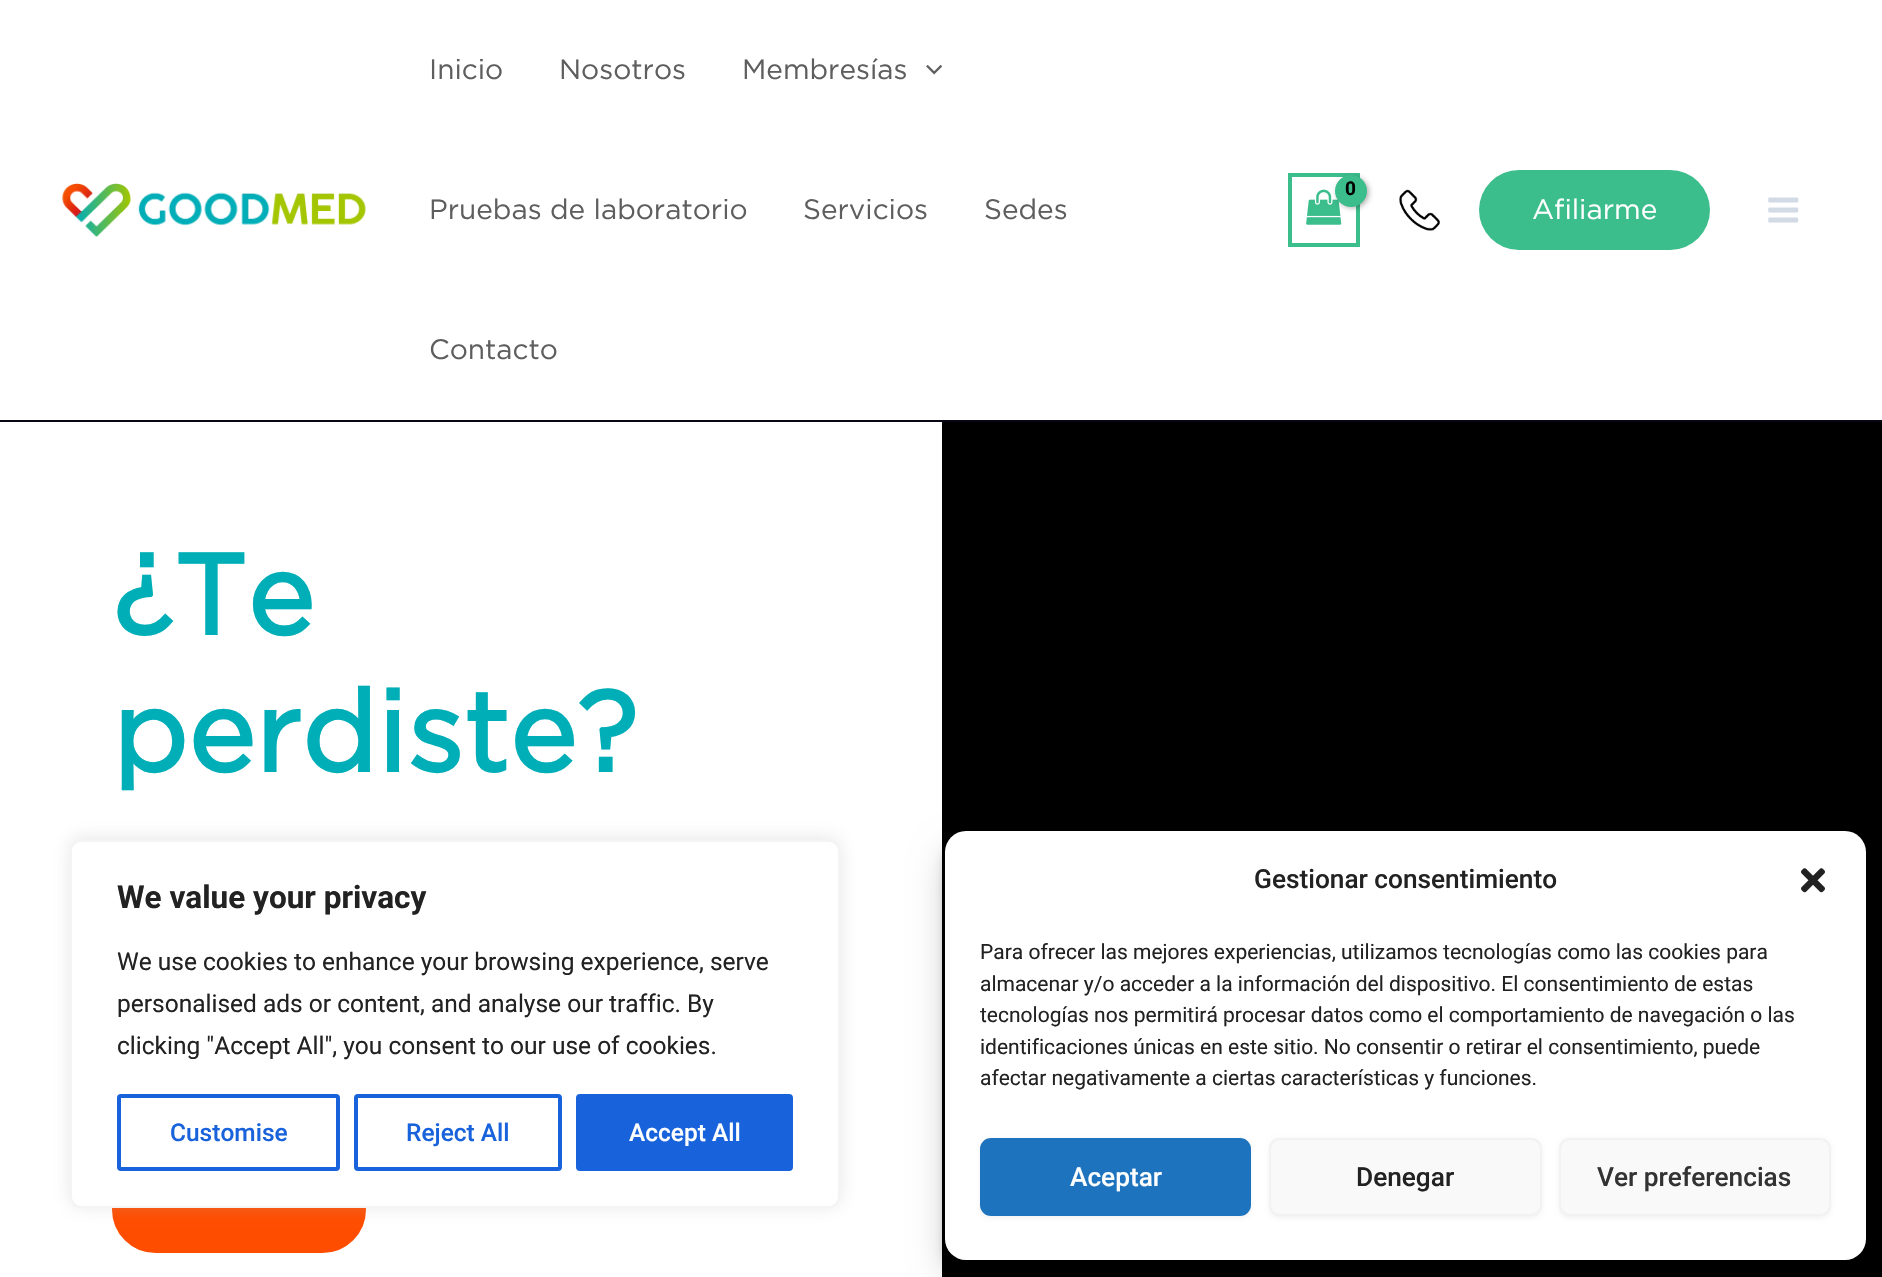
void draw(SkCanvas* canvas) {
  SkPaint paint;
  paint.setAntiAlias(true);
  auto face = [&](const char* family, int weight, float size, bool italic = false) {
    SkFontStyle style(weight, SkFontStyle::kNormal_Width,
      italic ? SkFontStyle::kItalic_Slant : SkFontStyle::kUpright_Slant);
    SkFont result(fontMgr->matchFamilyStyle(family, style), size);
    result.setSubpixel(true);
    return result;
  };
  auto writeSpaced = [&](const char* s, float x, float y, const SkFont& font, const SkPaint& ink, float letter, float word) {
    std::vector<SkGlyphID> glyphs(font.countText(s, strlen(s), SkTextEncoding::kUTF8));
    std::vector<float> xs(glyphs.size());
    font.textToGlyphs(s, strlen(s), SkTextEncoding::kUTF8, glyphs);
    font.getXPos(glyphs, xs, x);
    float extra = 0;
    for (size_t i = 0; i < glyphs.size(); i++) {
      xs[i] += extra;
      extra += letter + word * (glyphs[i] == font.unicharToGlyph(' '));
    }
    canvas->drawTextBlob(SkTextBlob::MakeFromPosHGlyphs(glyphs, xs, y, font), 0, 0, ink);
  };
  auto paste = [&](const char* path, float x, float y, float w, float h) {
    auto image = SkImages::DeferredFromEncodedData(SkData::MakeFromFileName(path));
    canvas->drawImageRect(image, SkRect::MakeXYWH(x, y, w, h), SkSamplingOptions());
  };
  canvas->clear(0xffffffff);
  paint.setColor(0xff070614);
  canvas->drawRect(SkRect::MakeXYWH(0, 420, 1882, 2), paint);
  paste("img/1.png", 62, 183, 304, 54);
  paste("img/2.png", 926, 64, 16, 11);
  paint.setStroke(true);
  paint.setStrokeWidth(4);
  paint.setColor(0xff3bbd8c);
  canvas->drawRect(SkRect::MakeXYWH(1290, 175, 68, 70), paint);
  paste("img/3.png", 1306, 189, 36, 36);
  paint.setStroke(false);
  paint.setColor(0x4d000000);
  paint.setMaskFilter(SkMaskFilter::MakeBlur(kNormal_SkBlurStyle, 2.5f));
  canvas->drawRoundRect(SkRect::MakeXYWH(1337, 177, 32, 31), 15.5f, 15.5f, paint);
  paint.setMaskFilter(nullptr);
  paint.setColor(0xff3bbd8c);
  canvas->drawCircle(1351, 191, 16, paint);
  paste("img/4.png", 1399, 189, 41, 42);
  canvas->drawRoundRect(SkRect::MakeXYWH(1479, 170, 231, 80), 40, 40, paint);
  paste("img/5.png", 1768, 197, 31, 26);
  paint.setColor(0xffff4d00);
  canvas->drawRoundRect(SkRect::MakeXYWH(113, 1167, 252, 85), 42.5f, 42.5f, paint);
  paint.setStroke(true);
  paint.setStrokeWidth(2);
  canvas->drawRoundRect(SkRect::MakeXYWH(113, 1167, 252, 85), 42.5f, 42.5f, paint);
  paint.setStroke(false);
  paint.setColor(0xff000000);
  canvas->drawRect(SkRect::MakeXYWH(942, 422, 940, 855), paint);
  paint.setColor(0x4dacabab);
  paint.setMaskFilter(SkMaskFilter::MakeBlur(kNormal_SkBlurStyle, 9));
  canvas->drawRoundRect(SkRect::MakeXYWH(70, 838, 770, 368), 11, 11, paint);
  paint.setMaskFilter(nullptr);
  paint.setColor(0xffffffff);
  canvas->drawRoundRect(SkRect::MakeXYWH(71, 841, 768, 366), 10, 10, paint);
  paint.setStroke(true);
  paint.setColor(0xfff4f4f4);
  canvas->drawRoundRect(SkRect::MakeXYWH(71, 841, 768, 366), 10, 10, paint);
  paint.setStrokeWidth(4);
  paint.setColor(0xff1863dc);
  canvas->drawRoundRect(SkRect::MakeXYWH(119, 1096, 219, 73), 2, 2, paint);
  canvas->drawRoundRect(SkRect::MakeXYWH(356, 1096, 204, 73), 2, 2, paint);
  paint.setStroke(false);
  canvas->drawRoundRect(SkRect::MakeXYWH(578, 1096, 213, 73), 2, 2, paint);
  paint.setStroke(true);
  canvas->drawRoundRect(SkRect::MakeXYWH(578, 1096, 213, 73), 2, 2, paint);
  paint.setStroke(false);
  paint.setColor(0x3b000000);
  paint.setMaskFilter(SkMaskFilter::MakeBlur(kNormal_SkBlurStyle, 5));
  canvas->drawRoundRect(SkRect::MakeXYWH(945, 842, 921, 429), 21, 21, paint);
  paint.setMaskFilter(nullptr);
  paint.setColor(0x30000000);
  paint.setMaskFilter(SkMaskFilter::MakeBlur(kNormal_SkBlurStyle, 17.5f));
  canvas->drawRoundRect(SkRect::MakeXYWH(945, 849, 921, 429), 21, 21, paint);
  paint.setMaskFilter(nullptr);
  paint.setColor(0xffffffff);
  canvas->drawRoundRect(SkRect::MakeXYWH(945, 831, 921, 429), 21, 21, paint);
  paste("img/6.png", 1801, 868, 24, 25);
  paint.setColor(0x0d000000);
  paint.setMaskFilter(SkMaskFilter::MakeBlur(kNormal_SkBlurStyle, 2));
  canvas->drawRoundRect(SkRect::MakeXYWH(980, 1139, 271, 79), 11, 11, paint);
  paint.setMaskFilter(nullptr);
  paint.setColor(0xff1e73be);
  canvas->drawRoundRect(SkRect::MakeXYWH(981, 1139, 269, 76), 10, 10, paint);
  paint.setStroke(true);
  paint.setStrokeWidth(2);
  canvas->drawRoundRect(SkRect::MakeXYWH(981, 1139, 269, 76), 10, 10, paint);
  paint.setStroke(false);
  paint.setColor(0x0d000000);
  paint.setMaskFilter(SkMaskFilter::MakeBlur(kNormal_SkBlurStyle, 2));
  canvas->drawRoundRect(SkRect::MakeXYWH(1269, 1139, 273, 79), 11, 11, paint);
  paint.setMaskFilter(nullptr);
  paint.setColor(0xfff9f9f9);
  canvas->drawRoundRect(SkRect::MakeXYWH(1270, 1139, 271, 76), 10, 10, paint);
  paint.setStroke(true);
  paint.setColor(0xfff2f2f2);
  canvas->drawRoundRect(SkRect::MakeXYWH(1270, 1139, 271, 76), 10, 10, paint);
  paint.setStroke(false);
  paint.setColor(0x0d000000);
  paint.setMaskFilter(SkMaskFilter::MakeBlur(kNormal_SkBlurStyle, 2));
  canvas->drawRoundRect(SkRect::MakeXYWH(1559, 1139, 272, 79), 11, 11, paint);
  paint.setMaskFilter(nullptr);
  paint.setColor(0xfff9f9f9);
  canvas->drawRoundRect(SkRect::MakeXYWH(1560, 1139, 270, 76), 10, 10, paint);
  paint.setStroke(true);
  paint.setColor(0xfff2f2f2);
  canvas->drawRoundRect(SkRect::MakeXYWH(1560, 1139, 270, 76), 10, 10, paint);
  auto f0 = face("Gotham", 400, 28);
  paint.setStroke(false);
  paint.setColor(0xff5e5e5e);
  {
    const struct { const char* s; float x, y; } items[] = {
      {"Inicio", 429, 79},
      {"Nosotros", 559, 79},
      {"Membresías", 742, 79},
      {"Pruebas de laboratorio", 429, 219},
      {"Servicios", 803, 219},
      {"Sedes", 984, 219},
      {"Contacto", 429, 359},
    };
    for (auto [s, x, y] : items) {
      canvas->drawString(s, x, y, f0, paint);
    }
  }
  auto f1 = face("Roboto", 700, 19);
  paint.setColor(0xff000000);
  writeSpaced("0", 1345, 195, f1, paint, -1, 0);
  paint.setColor(0xffffffff);
  canvas->drawString("Afiliarme", 1532, 219, f0, paint);
  auto f2 = face("Gotham", 700, 113.75f);
  paint.setColor(0xff00aeb7);
  canvas->drawString("¿Te", 112, 635, f2, paint);
  canvas->drawString("perdiste?", 112, 772, f2, paint);
  auto f3 = face("Roboto", 700, 31.5f);
  paint.setColor(0xff222222);
  canvas->drawString("We value your privacy", 117, 908, f3, paint);
  auto f4 = face("Roboto", 400, 24.5f);
  {
    const struct { const char* s; float x, y; } items[] = {
      {"We use cookies to enhance your browsing experience, serve", 117, 970},
      {"personalised ads or content, and analyse our traffic. By", 117, 1012},
      {"clicking \"Accept All\", you consent to our use of cookies.", 117, 1054},
    };
    for (auto [s, x, y] : items) {
      canvas->drawString(s, x, y, f4, paint);
    }
  }
  auto f5 = face("Roboto", 500, 24.5f);
  paint.setColor(0xff1863dc);
  canvas->drawString("Customise", 170, 1141, f5, paint);
  canvas->drawString("Reject All", 406, 1141, f5, paint);
  paint.setColor(0xffffffff);
  canvas->drawString("Accept All", 629, 1141, f5, paint);
  auto f6 = face("Roboto", 500, 26.25f);
  paint.setColor(0xff222222);
  canvas->drawString("Gestionar consentimiento", 1254, 888, f6, paint);
  auto f7 = face("Roboto", 400, 21);
  {
    const struct { const char* s; float x, y; } items[] = {
      {"Para ofrecer las mejores experiencias, utilizamos tecnologías como las cookies para", 980, 959},
      {"almacenar y/o acceder a la información del dispositivo. El consentimiento de estas", 980, 991},
      {"tecnologías nos permitirá procesar datos como el comportamiento de navegación o las", 980, 1022},
      {"identificaciones únicas en este sitio. No consentir o retirar el consentimiento, puede", 980, 1054},
      {"afectar negativamente a ciertas características y funciones.", 980, 1085},
    };
    for (auto [s, x, y] : items) {
      canvas->drawString(s, x, y, f7, paint);
    }
  }
  paint.setColor(0xffffffff);
  canvas->drawString("Aceptar", 1070, 1186, f6, paint);
  paint.setColor(0xff222222);
  canvas->drawString("Denegar", 1356, 1186, f6, paint);
  paint.setColor(0xff333333);
  canvas->drawString("Ver preferencias", 1597, 1186, f6, paint);
}
